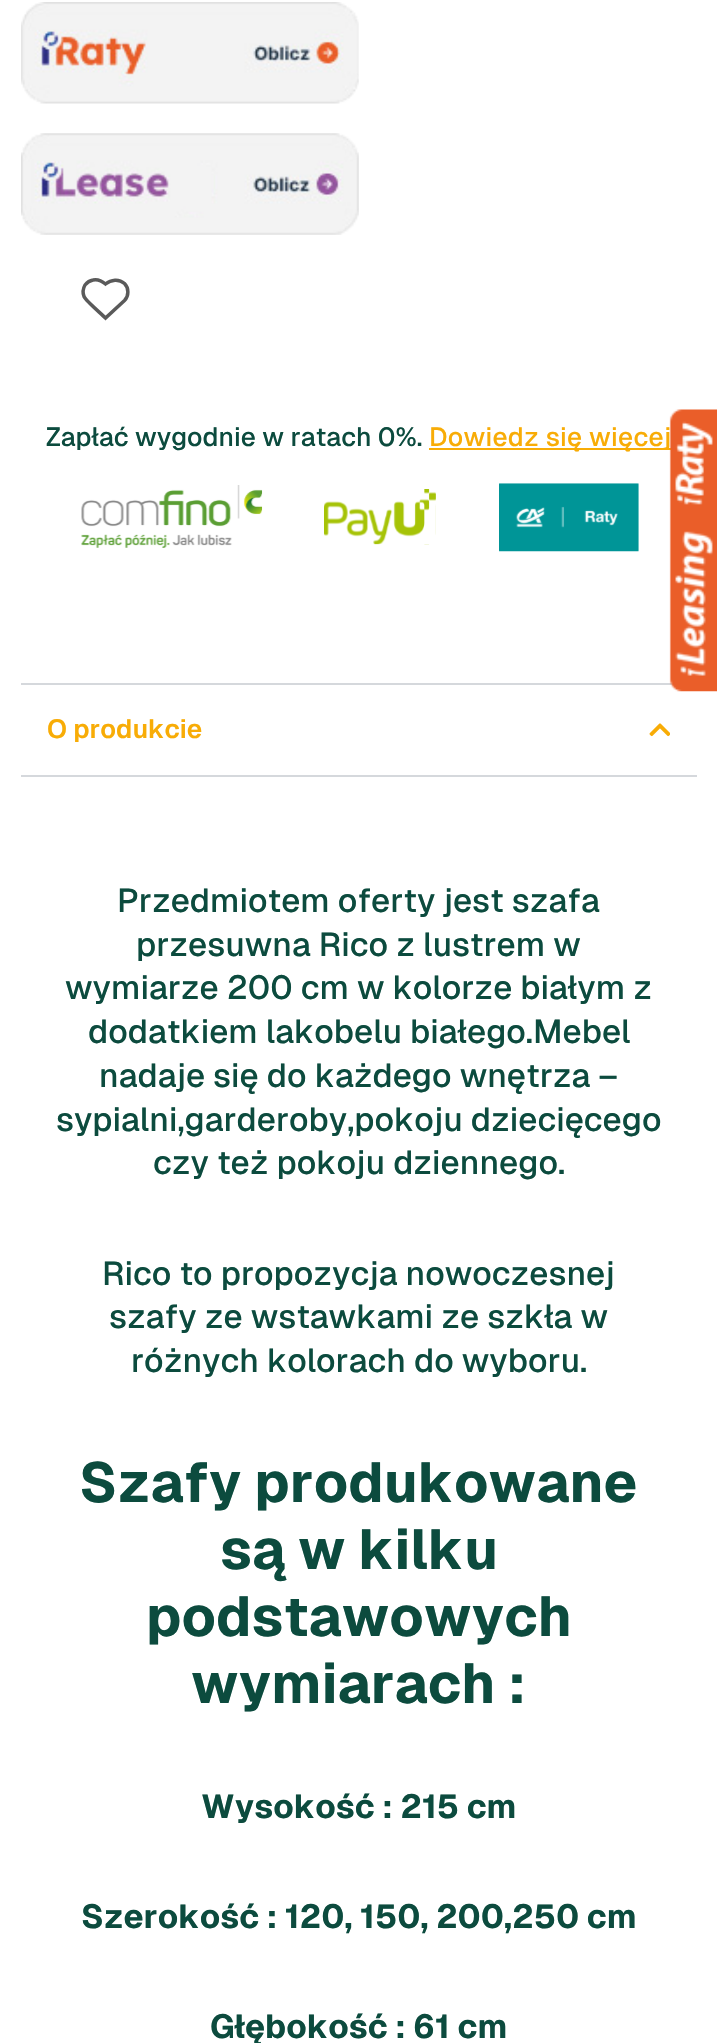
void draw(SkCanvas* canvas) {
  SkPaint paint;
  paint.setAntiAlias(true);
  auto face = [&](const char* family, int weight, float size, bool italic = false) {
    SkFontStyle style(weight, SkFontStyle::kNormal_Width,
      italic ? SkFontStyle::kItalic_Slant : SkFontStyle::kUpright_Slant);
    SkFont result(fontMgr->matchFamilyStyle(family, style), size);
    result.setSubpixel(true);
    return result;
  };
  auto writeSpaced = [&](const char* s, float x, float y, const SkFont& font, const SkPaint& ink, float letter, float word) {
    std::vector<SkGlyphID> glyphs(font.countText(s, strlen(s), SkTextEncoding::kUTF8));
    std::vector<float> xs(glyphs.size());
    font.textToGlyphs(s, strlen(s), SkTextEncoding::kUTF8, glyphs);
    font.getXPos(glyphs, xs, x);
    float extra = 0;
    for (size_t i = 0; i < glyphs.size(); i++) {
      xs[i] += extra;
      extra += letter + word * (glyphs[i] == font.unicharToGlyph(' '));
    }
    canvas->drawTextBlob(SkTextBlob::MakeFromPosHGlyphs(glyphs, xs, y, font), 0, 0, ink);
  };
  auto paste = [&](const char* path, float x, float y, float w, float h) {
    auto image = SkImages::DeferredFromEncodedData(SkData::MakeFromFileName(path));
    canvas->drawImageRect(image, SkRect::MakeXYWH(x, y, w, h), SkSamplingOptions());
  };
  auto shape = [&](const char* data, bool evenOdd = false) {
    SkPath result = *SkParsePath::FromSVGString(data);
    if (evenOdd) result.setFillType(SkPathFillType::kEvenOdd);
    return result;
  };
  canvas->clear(0xffffffff);
  paste("img/1.png", 21, 2, 338, 102);
  paste("img/2.png", 21, 133, 338, 102);
  paint.setStroke(true);
  paint.setStrokeWidth(3.5f);
  paint.setColor(0xff5a5a5a);
  canvas->drawPath(shape("M124.5 283.5C119 278.5 111 279.5 105.5 284C102 281 98 279 93 280C90 280.5 87 282.5 85 285C83 288.5 82.5 292.5 84 296.5C86 301 100.5 313 105.5 318L124.5 300.5C129 296 129 288 124.5 283.5Z"), paint);
  paint.setStroke(false);
  paint.setColor(0xfff8ac06);
  canvas->drawRect(SkRect::MakeXYWH(429, 448, 243, 2), paint);
  paste("img/3.png", 81, 485, 182, 63);
  paste("img/4.png", 324, 489, 112, 56);
  paste("img/5.png", 499, 483, 140, 69);
  paint.setColor(0xffd5d8dc);
  canvas->drawRect(SkRect::MakeXYWH(21, 683, 654, 2), paint);
  canvas->drawRect(SkRect::MakeXYWH(21, 775, 676, 2), paint);
  paste("img/6.png", 649, 723, 21, 14);
  auto f0 = face("Geist", 500, 26.25f);
  paint.setColor(0xff0c4b3e);
  canvas->drawString("Zapłać wygodnie w ratach 0%.", 46, 446, f0, paint);
  paint.setColor(0xfff8ac06);
  writeSpaced("Dowiedz się więcej", 429, 446, f0, paint, 0.25f, 0);
  auto f1 = face("Geist", 600, 26.25f);
  canvas->drawString("O produkcie", 47, 738, f1, paint);
  auto f2 = face("Geist", 500, 33.25f);
  paint.setColor(0xff0c4b3e);
  {
    const struct { const char* s; float x, y; } items[] = {
      {"Przedmiotem oferty jest szafa", 117, 912},
      {"przesuwna Rico z lustrem w", 136, 956},
      {"wymiarze 200 cm w kolorze białym z", 65, 999},
      {"dodatkiem lakobelu białego.Mebel", 88, 1043},
      {"nadaje się do każdego wnętrza –", 99, 1087},
      {"sypialni,garderoby,pokoju dziecięcego", 56, 1131},
      {"czy też pokoju dziennego.", 153, 1174},
      {"Rico to propozycja nowoczesnej", 102, 1285},
      {"szafy ze wstawkami ze szkła w", 109, 1328},
      {"różnych kolorach do wyboru.", 131, 1372},
    };
    for (auto [s, x, y] : items) {
      canvas->drawString(s, x, y, f2, paint);
    }
  }
  auto f3 = face("Geist", 700, 56);
  {
    const struct { const char* s; float x, y; } items[] = {
      {"Szafy produkowane", 79, 1502},
      {"są w kilku", 220, 1569},
      {"podstawowych", 146, 1636},
      {"wymiarach :", 191, 1703},
    };
    for (auto [s, x, y] : items) {
      canvas->drawString(s, x, y, f3, paint);
    }
  }
  auto f4 = face("Geist", 700, 33.25f);
  {
    const struct { const char* s; float x, y; } items[] = {
      {"Wysokość : 215 cm", 201, 1818},
      {"Szerokość : 120, 150, 200,250 cm", 81, 1928},
      {"Głębokość : 61 cm", 210, 2038},
    };
    for (auto [s, x, y] : items) {
      canvas->drawString(s, x, y, f4, paint);
    }
  }
  paste("img/7.png", 669, 409, 48, 283);
}
